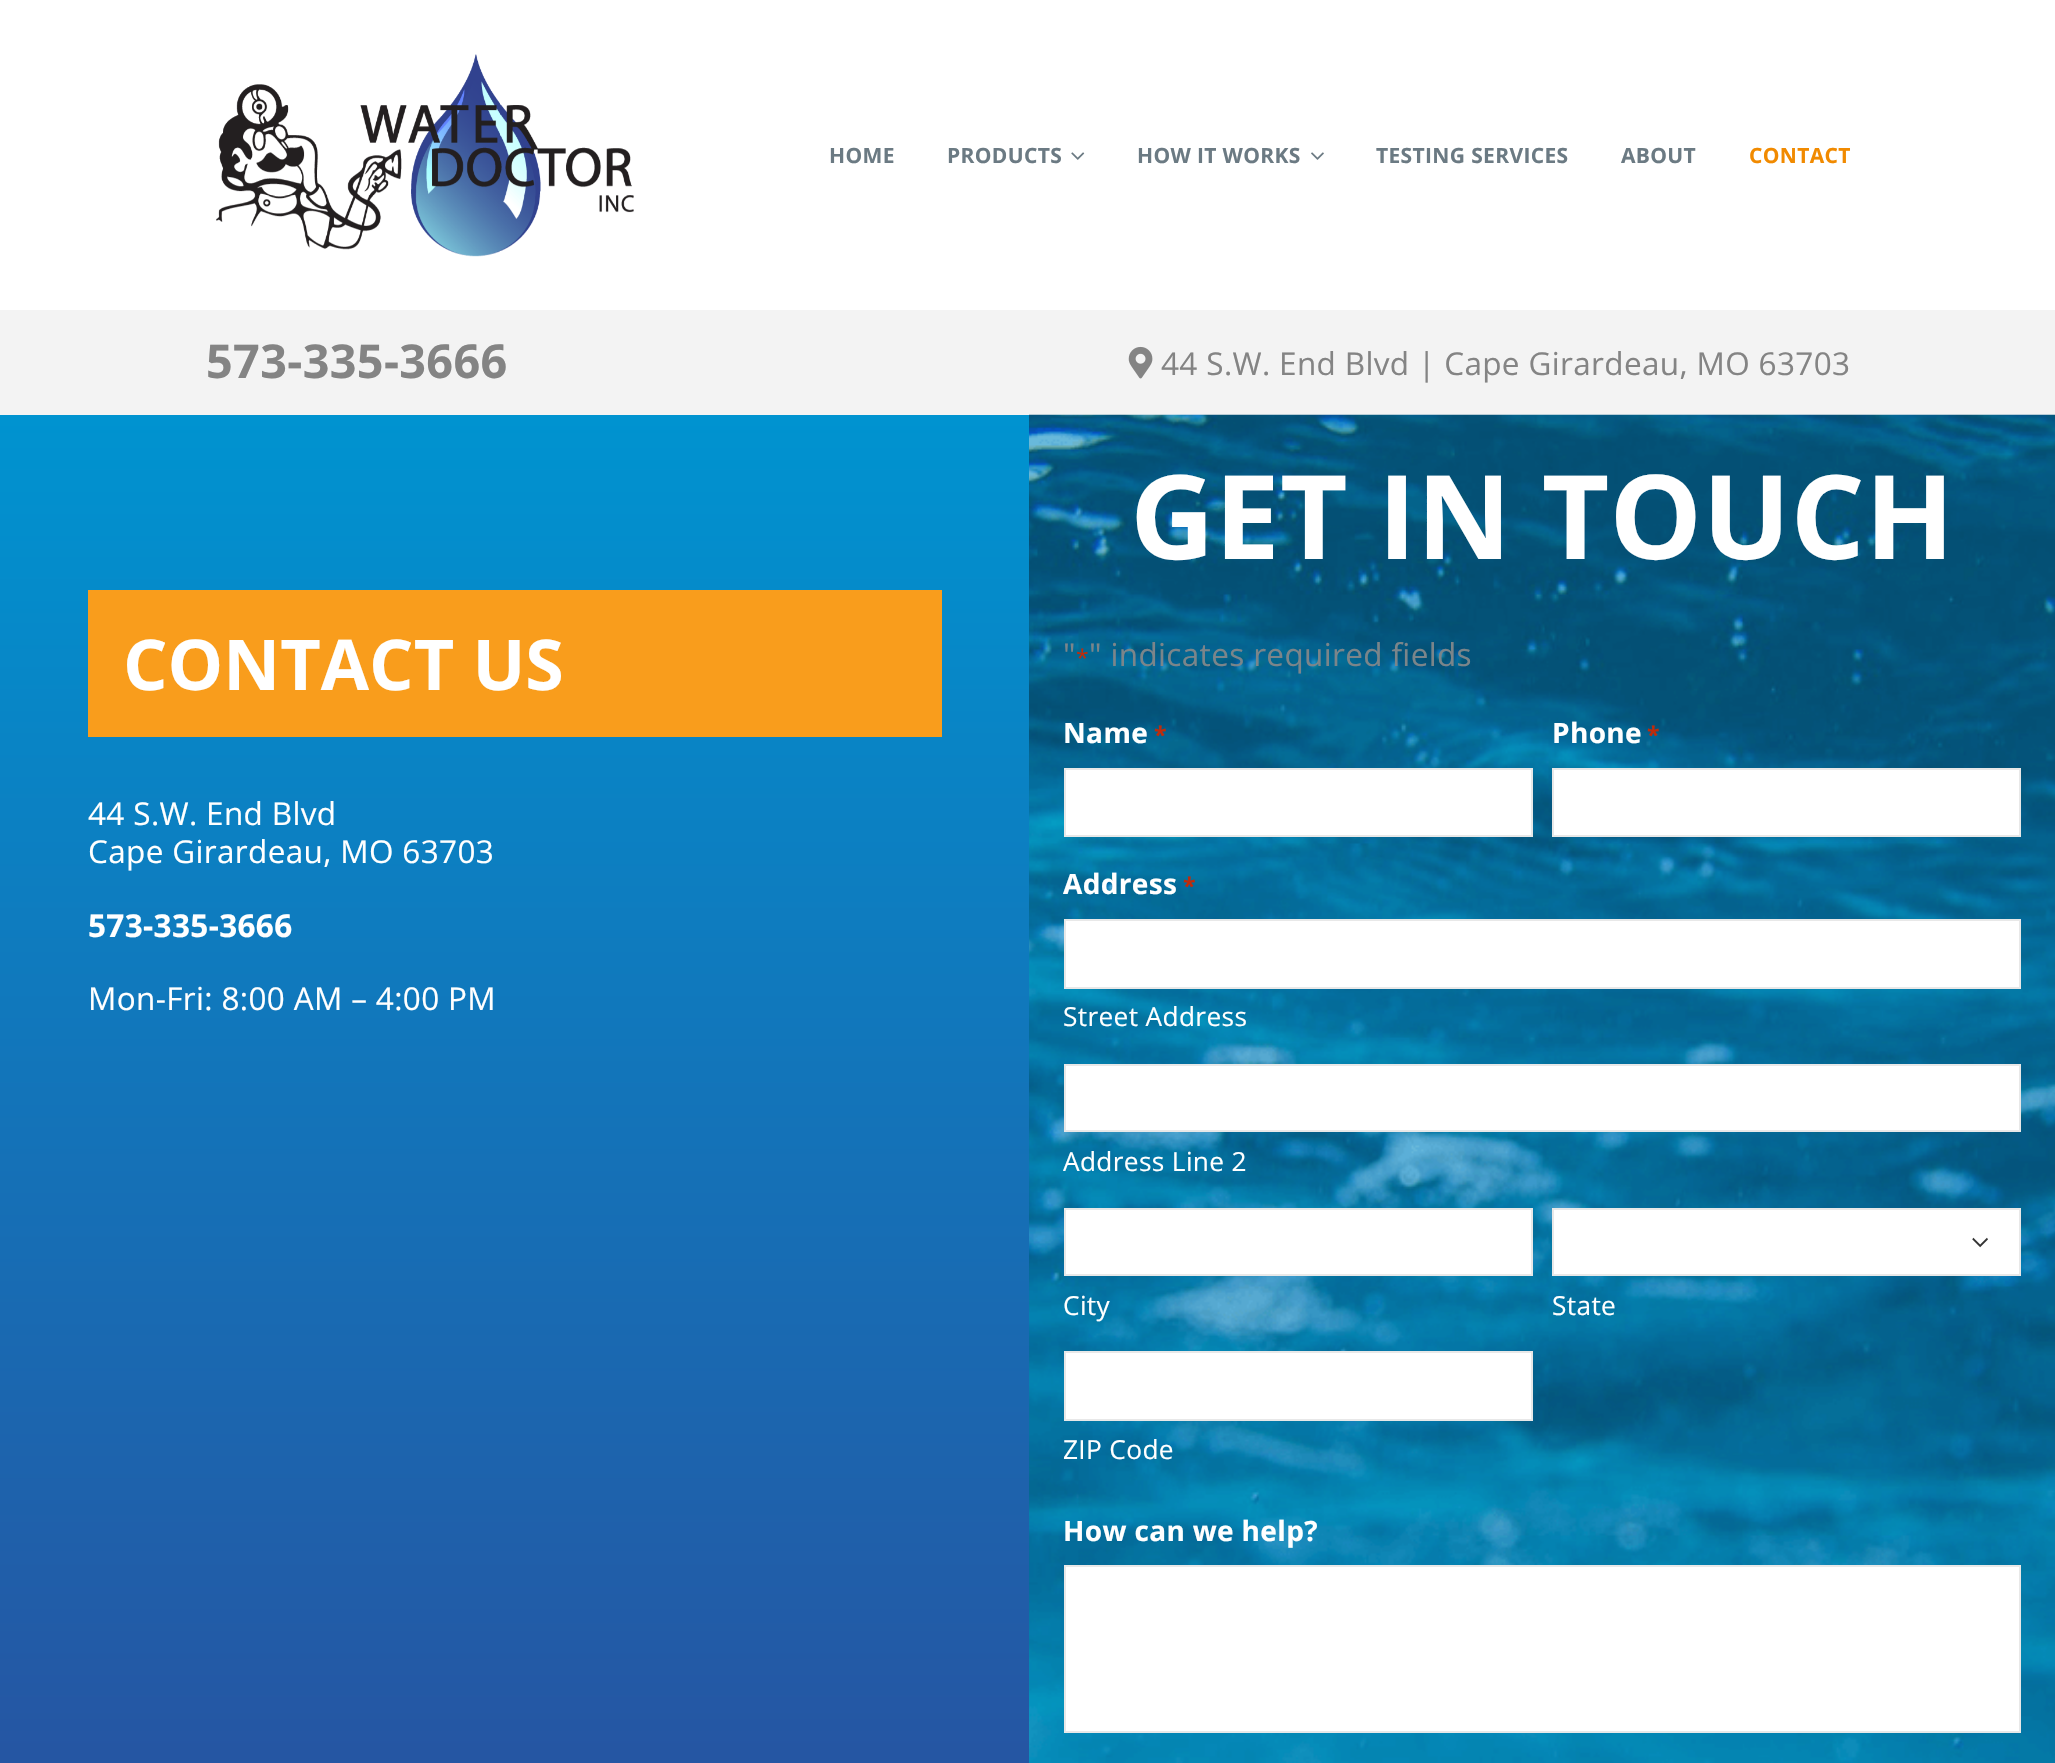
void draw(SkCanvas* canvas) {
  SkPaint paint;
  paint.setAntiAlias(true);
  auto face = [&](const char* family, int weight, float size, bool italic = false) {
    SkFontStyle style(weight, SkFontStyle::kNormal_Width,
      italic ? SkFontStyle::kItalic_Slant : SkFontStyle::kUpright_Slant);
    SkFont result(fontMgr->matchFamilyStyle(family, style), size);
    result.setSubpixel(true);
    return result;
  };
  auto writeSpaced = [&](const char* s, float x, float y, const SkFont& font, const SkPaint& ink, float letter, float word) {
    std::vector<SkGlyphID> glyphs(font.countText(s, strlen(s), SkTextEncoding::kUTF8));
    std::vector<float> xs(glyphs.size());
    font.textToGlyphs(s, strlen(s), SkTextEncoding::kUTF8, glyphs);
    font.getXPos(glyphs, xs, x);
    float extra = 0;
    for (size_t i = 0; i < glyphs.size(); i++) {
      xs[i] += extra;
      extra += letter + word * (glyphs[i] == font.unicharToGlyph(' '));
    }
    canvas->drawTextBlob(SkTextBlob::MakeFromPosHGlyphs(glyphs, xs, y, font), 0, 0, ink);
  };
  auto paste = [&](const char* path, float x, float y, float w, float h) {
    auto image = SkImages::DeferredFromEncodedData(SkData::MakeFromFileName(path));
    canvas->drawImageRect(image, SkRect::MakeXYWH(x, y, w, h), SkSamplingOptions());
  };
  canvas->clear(0xffffffff);
  paste("img/1.png", 216, 54, 418, 203);
  paste("img/2.png", 1071, 152, 14, 8);
  paste("img/3.png", 1311, 152, 13, 8);
  paint.setColor(0xfff3f3f3);
  canvas->drawRect(SkRect::MakeXYWH(0, 310, 2055, 105), paint);
  paste("img/4.png", 1128, 346, 25, 33);
  {
    const SkColor colors[] = {0xff0093d0, 0xff304496};
    const float stops[] = {0, 1};
    const SkPoint ends[] = {{1028, 415}, {1028, 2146}};
    paint.setShader(SkGradientShader::MakeLinear(ends, colors, stops, 2, SkTileMode::kClamp));
    paint.setAlpha(255);
  }
  canvas->drawRect(SkRect::MakeXYWH(0, 415, 1029, 1348), paint);
  paint.setShader(nullptr);
  paint.setColor(0xfff99d1c);
  canvas->drawRect(SkRect::MakeXYWH(88, 590, 854, 147), paint);
  paste("img/5.png", 1029, 414, 1026, 1349);
  paint.setColor(0xffffffff);
  canvas->drawRect(SkRect::MakeXYWH(1065, 769, 467, 67), paint);
  paint.setStroke(true);
  paint.setStrokeWidth(2);
  paint.setColor(0xffe8e8e8);
  canvas->drawRect(SkRect::MakeXYWH(1065, 769, 467, 67), paint);
  paint.setStroke(false);
  paint.setColor(0xffffffff);
  canvas->drawRect(SkRect::MakeXYWH(1553, 769, 467, 67), paint);
  paint.setStroke(true);
  paint.setColor(0xffe8e8e8);
  canvas->drawRect(SkRect::MakeXYWH(1553, 769, 467, 67), paint);
  paint.setStroke(false);
  paint.setColor(0xffffffff);
  canvas->drawRect(SkRect::MakeXYWH(1065, 920, 955, 68), paint);
  paint.setStroke(true);
  paint.setColor(0xffe8e8e8);
  canvas->drawRect(SkRect::MakeXYWH(1065, 920, 955, 68), paint);
  paint.setStroke(false);
  paint.setColor(0xffffffff);
  canvas->drawRect(SkRect::MakeXYWH(1065, 1065, 955, 66), paint);
  paint.setStroke(true);
  paint.setColor(0xffe8e8e8);
  canvas->drawRect(SkRect::MakeXYWH(1065, 1065, 955, 66), paint);
  paint.setStroke(false);
  paint.setColor(0xffffffff);
  canvas->drawRect(SkRect::MakeXYWH(1065, 1209, 467, 66), paint);
  paint.setStroke(true);
  paint.setColor(0xffe8e8e8);
  canvas->drawRect(SkRect::MakeXYWH(1065, 1209, 467, 66), paint);
  paint.setStroke(false);
  paint.setColor(0xffffffff);
  canvas->drawRect(SkRect::MakeXYWH(1554, 1210, 465, 64), paint);
  paste("img/6.png", 1972, 1237, 16, 11);
  paint.setStroke(true);
  paint.setColor(0xffe8e8e8);
  canvas->drawRect(SkRect::MakeXYWH(1553, 1209, 467, 66), paint);
  paint.setStroke(false);
  paint.setColor(0xffffffff);
  canvas->drawRect(SkRect::MakeXYWH(1065, 1352, 467, 68), paint);
  paint.setStroke(true);
  paint.setColor(0xffe8e8e8);
  canvas->drawRect(SkRect::MakeXYWH(1065, 1352, 467, 68), paint);
  paint.setStroke(false);
  paint.setColor(0xffffffff);
  canvas->drawRect(SkRect::MakeXYWH(1065, 1566, 955, 166), paint);
  paint.setStroke(true);
  paint.setColor(0xffe8e8e8);
  canvas->drawRect(SkRect::MakeXYWH(1065, 1566, 955, 166), paint);
  auto f0 = face("Open Sans", 700, 21);
  paint.setStroke(false);
  paint.setColor(0xff6b7a83);
  {
    const struct { const char* s; float x, y; } items[] = {
      {"HOME", 829, 163},
      {"PRODUCTS", 947, 163},
      {"HOW IT WORKS", 1137, 163},
      {"TESTING SERVICES", 1376, 163},
      {"ABOUT", 1621, 163},
    };
    for (auto [s, x, y] : items) {
      writeSpaced(s, x, y, f0, paint, 0.35f, 0);
    }
  }
  paint.setColor(0xfff18a00);
  writeSpaced("CONTACT", 1749, 163, f0, paint, 0.35f, 0);
  auto f1 = face("Open Sans", 700, 46.75f);
  paint.setColor(0xff848484);
  writeSpaced("573-335-3666", 206, 378, f1, paint, 0.35f, 0);
  auto f2 = face("Open Sans", 400, 31.5f);
  writeSpaced("44 S.W. End Blvd | Cape Girardeau, MO 63703", 1161, 375, f2, paint, 0.35f, 0);
  auto f3 = face("Open Sans", 700, 70);
  paint.setColor(0xffffffff);
  canvas->drawString("CONTACT US", 123, 690, f3, paint);
  writeSpaced("44 S.W. End Blvd", 88, 825, f2, paint, 0.35f, 0);
  writeSpaced("Cape Girardeau, MO 63703", 88, 863, f2, paint, 0.35f, 0);
  auto f4 = face("Open Sans", 700, 31.5f);
  writeSpaced("573-335-3666", 88, 937, f4, paint, 0.35f, 0);
  writeSpaced("Mon-Fri: 8:00 AM – 4:00 PM", 88, 1010, f2, paint, 0.35f, 0);
  auto f5 = face("Open Sans", 700, 116.75f);
  canvas->drawString("GET IN TOUCH", 1130, 559, f5, paint);
  paint.setColor(0xff7b858a);
  writeSpaced("\"", 1063, 666, f2, paint, 0.35f, 0);
  auto f6 = face("Open Sans", 400, 23);
  paint.setColor(0xffc02b0a);
  writeSpaced("*", 1076, 666, f6, paint, 0.35f, 0);
  paint.setColor(0xff7b858a);
  writeSpaced("\" indicates required fields", 1089, 666, f2, paint, 0.35f, 0);
  auto f7 = face("Open Sans", 700, 28);
  paint.setColor(0xffffffff);
  writeSpaced("Name", 1063, 743, f7, paint, 0.35f, 0);
  auto f8 = face("Open Sans", 700, 23);
  paint.setColor(0xffc02b0a);
  writeSpaced("*", 1154, 743, f8, paint, 0.35f, 0);
  paint.setColor(0xffffffff);
  writeSpaced("Phone", 1552, 743, f7, paint, 0.35f, 0);
  paint.setColor(0xffc02b0a);
  writeSpaced("*", 1647, 743, f8, paint, 0.35f, 0);
  paint.setColor(0xffffffff);
  writeSpaced("Address", 1063, 894, f7, paint, 0.35f, 0);
  paint.setColor(0xffc02b0a);
  writeSpaced("*", 1183, 894, f8, paint, 0.35f, 0);
  auto f9 = face("Open Sans", 400, 26.25f);
  paint.setColor(0xffffffff);
  {
    const struct { const char* s; float x, y; } items[] = {
      {"Street Address", 1063, 1026},
      {"Address Line 2", 1063, 1171},
      {"City", 1063, 1315},
      {"State", 1552, 1315},
      {"ZIP Code", 1063, 1459},
    };
    for (auto [s, x, y] : items) {
      writeSpaced(s, x, y, f9, paint, 0.35f, 0);
    }
  }
  writeSpaced("How can we help?", 1063, 1541, f7, paint, 0.35f, 0);
}
